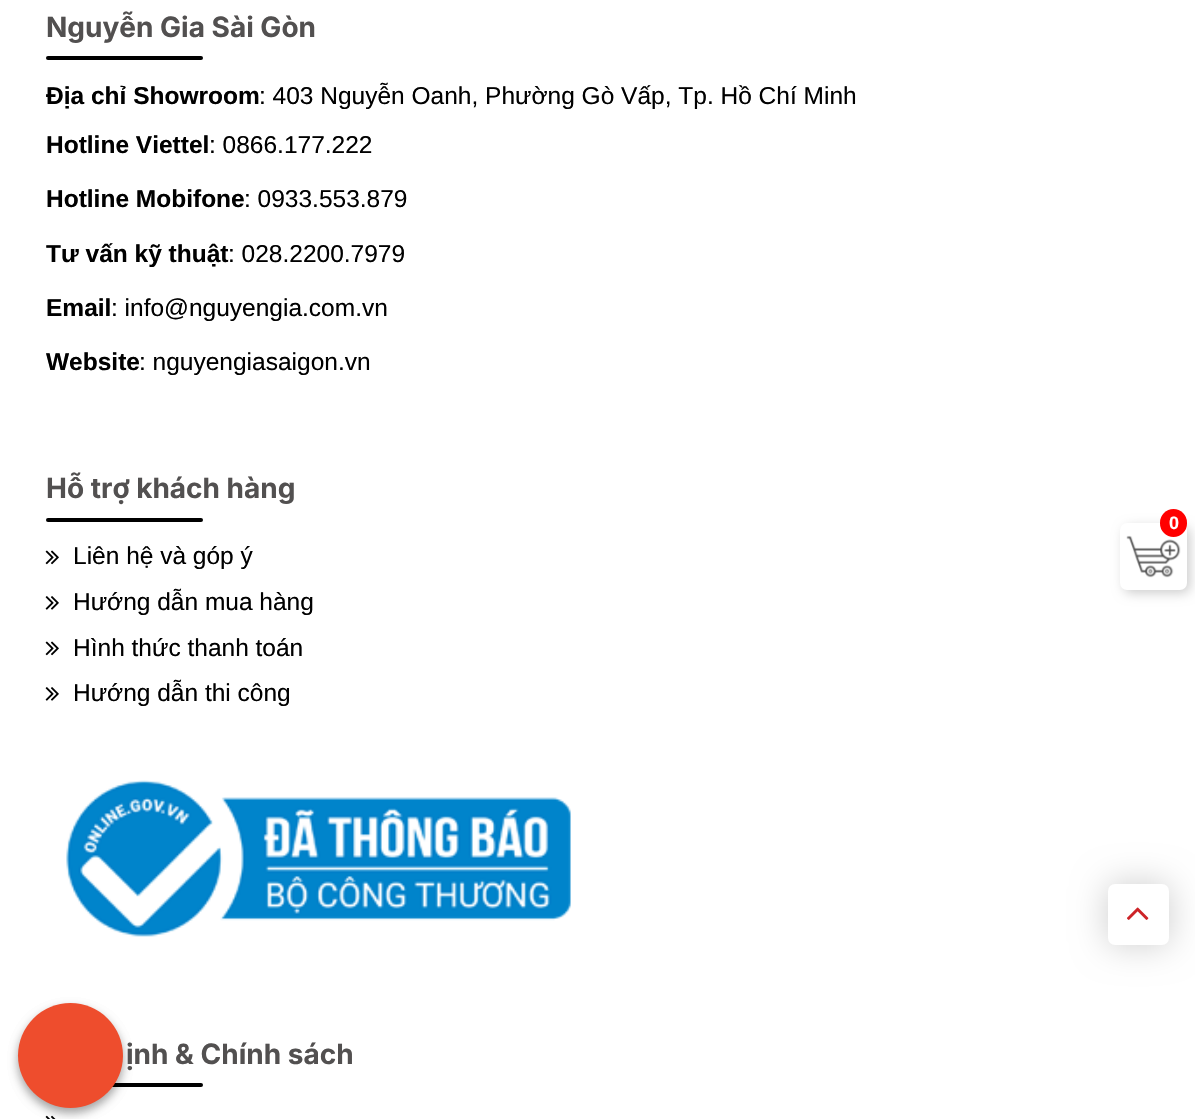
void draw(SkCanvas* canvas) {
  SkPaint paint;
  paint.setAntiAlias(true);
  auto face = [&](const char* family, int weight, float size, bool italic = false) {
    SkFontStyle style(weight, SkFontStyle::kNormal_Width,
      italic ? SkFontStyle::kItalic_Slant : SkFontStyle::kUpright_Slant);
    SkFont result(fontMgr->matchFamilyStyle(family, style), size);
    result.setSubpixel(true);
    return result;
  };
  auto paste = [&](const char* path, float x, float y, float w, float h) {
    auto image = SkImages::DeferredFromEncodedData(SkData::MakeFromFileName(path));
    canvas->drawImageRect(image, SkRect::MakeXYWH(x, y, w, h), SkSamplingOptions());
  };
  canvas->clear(0xffffffff);
  paint.setColor(0xff000000);
  canvas->drawRoundRect(SkRect::MakeXYWH(46, 56, 157, 4), 2, 2, paint);
  canvas->drawRoundRect(SkRect::MakeXYWH(46, 518, 157, 4), 2, 2, paint);
  paste("img/1.png", 45, 550, 14, 15);
  paste("img/2.png", 45, 596, 14, 14);
  paste("img/1.png", 45, 641, 14, 15);
  paste("img/2.png", 45, 687, 14, 14);
  paste("img/3.png", 66, 780, 505, 157);
  canvas->drawRoundRect(SkRect::MakeXYWH(46, 1083, 157, 4), 2, 2, paint);
  paste("img/4.png", 45, 1115, 11, 4);
  paint.setColor(0xffcccccc);
  paint.setMaskFilter(SkMaskFilter::MakeBlur(kNormal_SkBlurStyle, 6));
  canvas->drawRoundRect(SkRect::MakeXYWH(1124, 527, 66, 66), 7, 7, paint);
  paint.setMaskFilter(nullptr);
  paint.setColor(0xffffffff);
  canvas->drawRoundRect(SkRect::MakeXYWH(1120, 523, 67, 67), 7, 7, paint);
  paste("img/5.png", 1126, 535, 55, 43);
  paint.setColor(0xffff0000);
  canvas->drawRoundRect(SkRect::MakeXYWH(1160, 509, 27, 28), 13.5f, 13.5f, paint);
  paint.setColor(0x3b000000);
  paint.setMaskFilter(SkMaskFilter::MakeBlur(kNormal_SkBlurStyle, 5));
  canvas->drawRoundRect(SkRect::MakeXYWH(18, 1008, 105, 105), 52.5f, 52.5f, paint);
  paint.setMaskFilter(nullptr);
  paint.setColor(0x29000000);
  paint.setMaskFilter(SkMaskFilter::MakeBlur(kNormal_SkBlurStyle, 5));
  canvas->drawRoundRect(SkRect::MakeXYWH(18, 1008, 105, 105), 52.5f, 52.5f, paint);
  paint.setMaskFilter(nullptr);
  paint.setColor(0xffee4d2d);
  canvas->drawCircle(70.5f, 1055.5f, 52.5f, paint);
  paint.setColor(0xffcccccc);
  paint.setMaskFilter(SkMaskFilter::MakeBlur(kNormal_SkBlurStyle, 17.5f));
  canvas->drawRoundRect(SkRect::MakeXYWH(1108, 884, 61, 61), 7, 7, paint);
  paint.setMaskFilter(nullptr);
  paint.setColor(0xffffffff);
  canvas->drawRoundRect(SkRect::MakeXYWH(1108, 884, 61, 61), 7, 7, paint);
  paste("img/6.png", 1127, 907, 22, 13);
  auto f0 = face("Inter", 700, 28);
  paint.setColor(0xff525050);
  canvas->drawString("Nguyễn Gia Sài Gòn", 46, 37, f0, paint);
  auto f1 = face("Liberation Sans", 700, 24.5f);
  paint.setColor(0xff000000);
  canvas->drawString("Địa chỉ Showroom", 46, 104, f1, paint);
  auto f2 = face("Liberation Sans", 400, 24.5f);
  canvas->drawString(": 403 Nguyễn Oanh, Phường Gò Vấp, Tp. Hồ Chí Minh", 259, 104, f2, paint);
  canvas->drawString("Hotline Viettel", 46, 153, f1, paint);
  canvas->drawString(": 0866.177.222", 209, 153, f2, paint);
  canvas->drawString("Hotline Mobifone", 46, 207, f1, paint);
  canvas->drawString(": 0933.553.879", 244, 207, f2, paint);
  canvas->drawString("Tư vấn kỹ thuật", 46, 262, f1, paint);
  canvas->drawString(": 028.2200.7979", 228, 262, f2, paint);
  canvas->drawString("Email", 46, 316, f1, paint);
  canvas->drawString(": info@nguyengia.com.vn", 111, 316, f2, paint);
  canvas->drawString("Website", 46, 370, f1, paint);
  canvas->drawString(": nguyengiasaigon.vn", 139, 370, f2, paint);
  paint.setColor(0xff525050);
  canvas->drawString("Hỗ trợ khách hàng", 46, 498, f0, paint);
  paint.setColor(0xff000000);
  {
    const struct { const char* s; float x, y; } items[] = {
      {"Liên hệ và góp ý", 73, 564},
      {"Hướng dẫn mua hàng", 73, 610},
      {"Hình thức thanh toán", 73, 656},
      {"Hướng dẫn thi công", 73, 701},
    };
    for (auto [s, x, y] : items) {
      canvas->drawString(s, x, y, f2, paint);
    }
  }
  paint.setColor(0xff525050);
  canvas->drawString("ịnh & Chính sách", 126, 1064, f0, paint);
  auto f3 = face("Liberation Sans", 700, 18);
  paint.setColor(0xffffffff);
  canvas->drawString("0", 1169, 529, f3, paint);
}
